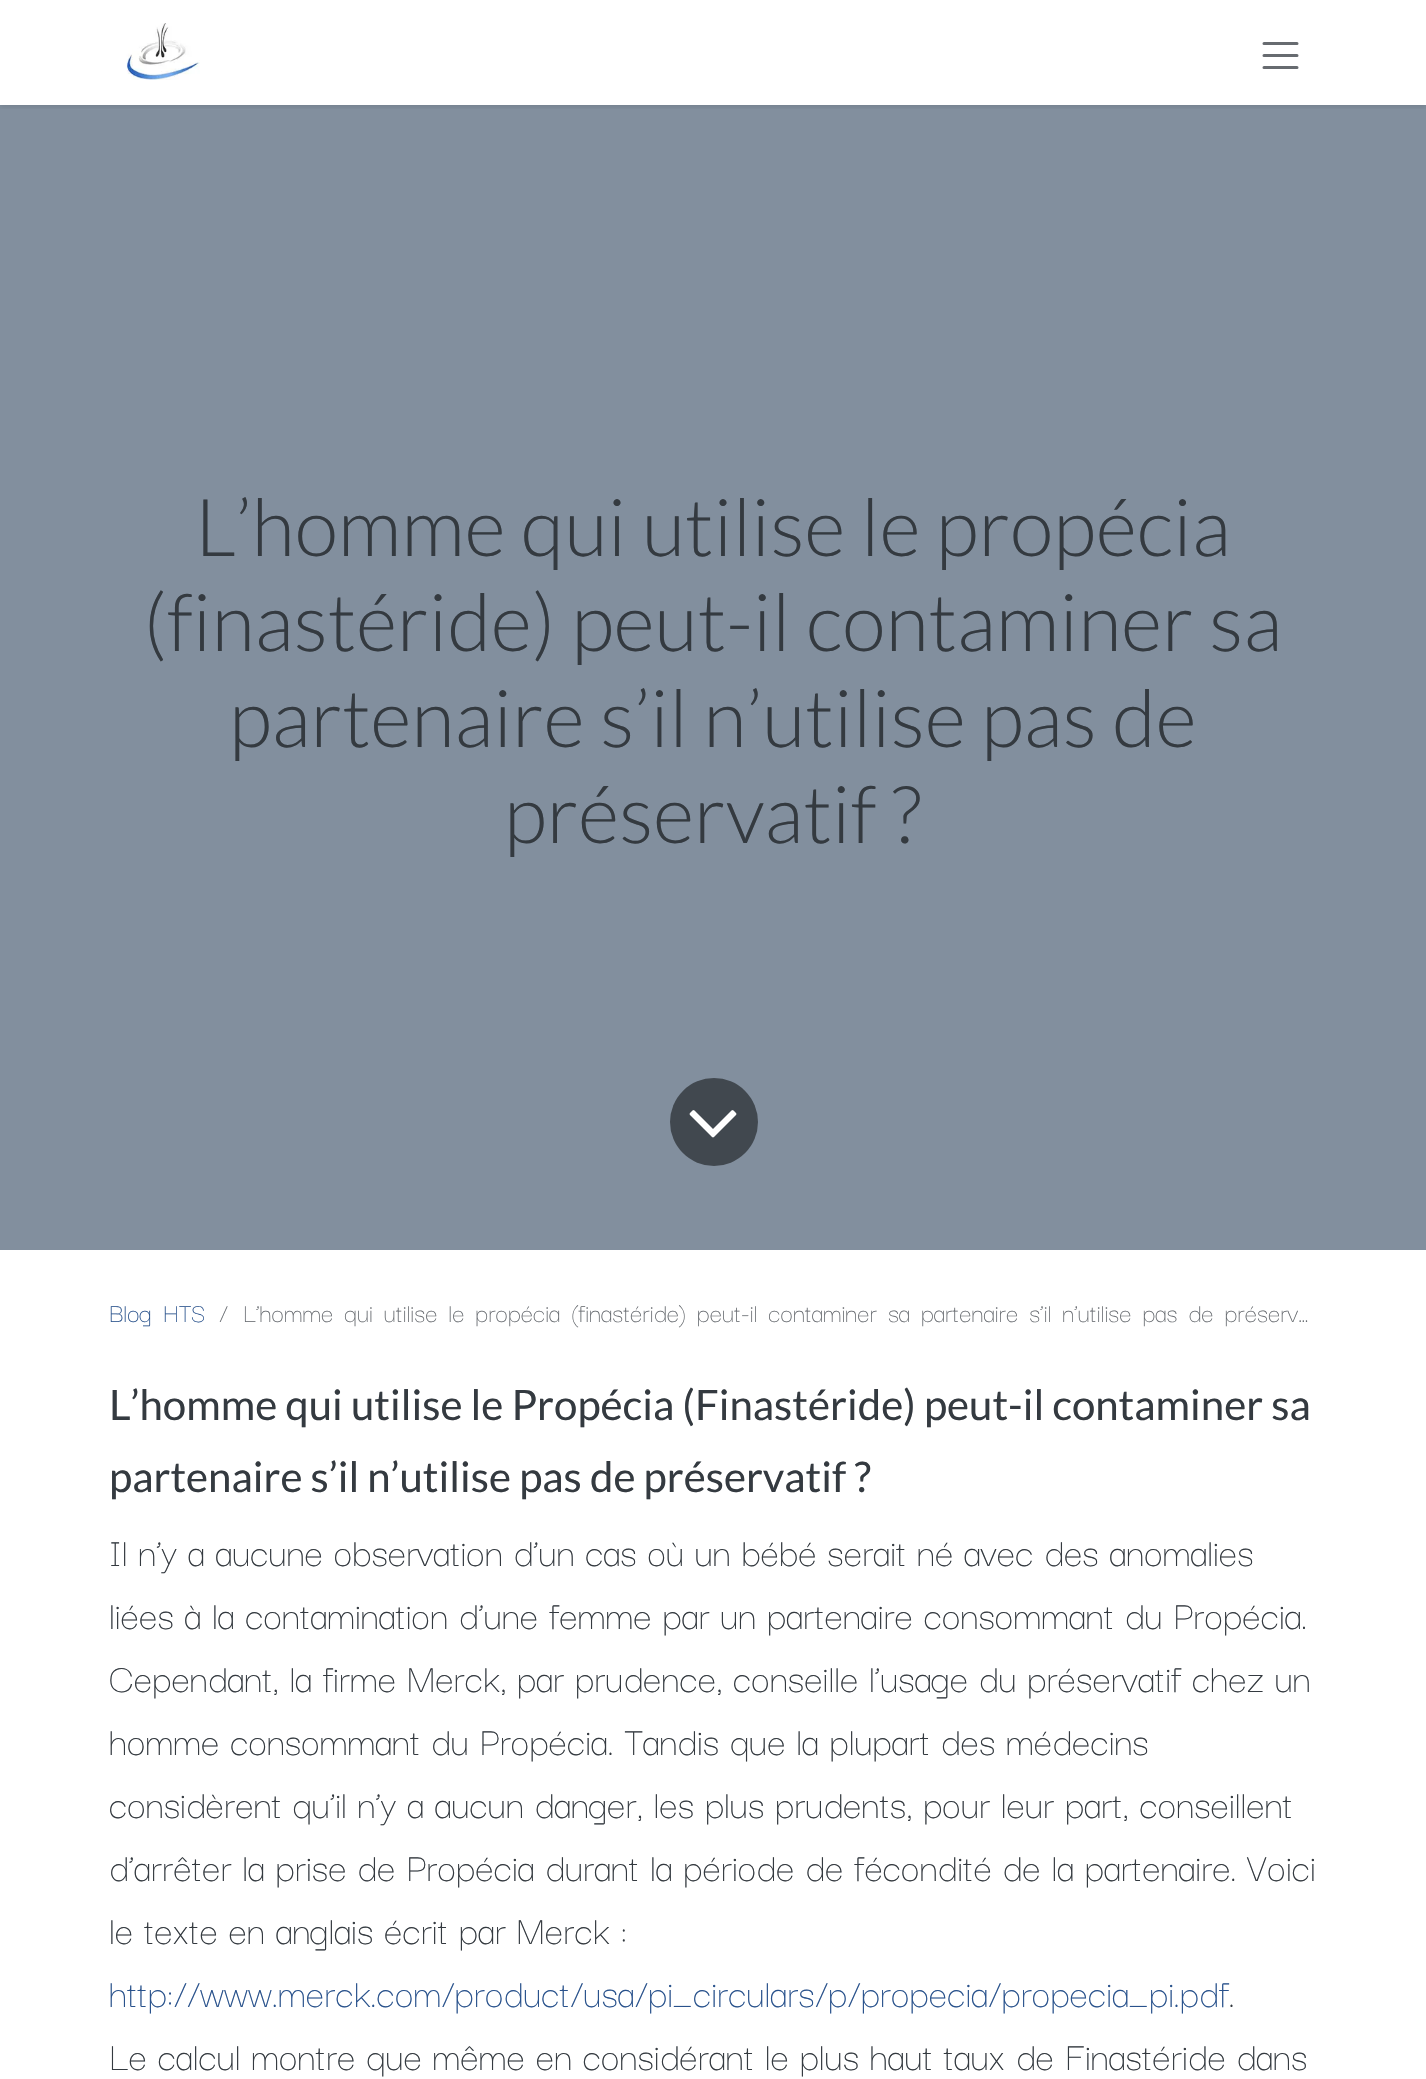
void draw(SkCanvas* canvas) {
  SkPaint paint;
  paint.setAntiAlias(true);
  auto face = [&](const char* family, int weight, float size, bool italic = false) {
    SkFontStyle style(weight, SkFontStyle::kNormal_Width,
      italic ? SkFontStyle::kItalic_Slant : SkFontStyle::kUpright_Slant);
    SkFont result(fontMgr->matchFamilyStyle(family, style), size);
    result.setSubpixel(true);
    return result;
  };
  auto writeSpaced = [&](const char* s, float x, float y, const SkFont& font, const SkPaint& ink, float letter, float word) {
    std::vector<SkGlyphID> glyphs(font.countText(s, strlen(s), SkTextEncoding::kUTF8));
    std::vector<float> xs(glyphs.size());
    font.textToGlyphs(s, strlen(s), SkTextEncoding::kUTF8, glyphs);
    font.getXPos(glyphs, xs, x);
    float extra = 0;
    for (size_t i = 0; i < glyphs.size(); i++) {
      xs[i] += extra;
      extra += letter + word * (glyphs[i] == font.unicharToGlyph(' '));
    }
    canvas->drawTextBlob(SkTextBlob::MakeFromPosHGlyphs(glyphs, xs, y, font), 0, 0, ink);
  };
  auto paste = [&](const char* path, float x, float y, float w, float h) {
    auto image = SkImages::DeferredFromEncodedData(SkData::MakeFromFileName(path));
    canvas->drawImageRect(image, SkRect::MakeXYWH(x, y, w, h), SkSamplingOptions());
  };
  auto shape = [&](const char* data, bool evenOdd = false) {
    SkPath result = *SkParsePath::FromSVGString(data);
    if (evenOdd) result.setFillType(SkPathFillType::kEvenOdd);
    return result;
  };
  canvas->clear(0xffffffff);
  paint.setColor(0xff828f9e);
  canvas->drawRect(SkRect::MakeXYWH(0, 105, 1426, 1145), paint);
  canvas->save();
  canvas->clipRect(SkRect::MakeXYWH(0, 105, 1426, 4));
  paint.setColor(0x1a000000);
  paint.setMaskFilter(SkMaskFilter::MakeBlur(kNormal_SkBlurStyle, 2.5f));
  canvas->drawRect(SkRect::MakeXYWH(0, 2, 1426, 105), paint);
  paint.setMaskFilter(nullptr);
  canvas->restore();
  paste("img/1.png", 126, 23, 74, 57);
  paint.setStroke(true);
  paint.setStrokeWidth(3);
  paint.setStrokeCap(SkPaint::kRound_Cap);
  paint.setColor(0xff676b70);
  canvas->drawPath(shape("M1264 43.5H1297M1264 55.5H1297M1264 67.5H1297"), paint);
  paint.setStroke(false);
  paint.setColor(0xff41484f);
  canvas->drawCircle(714, 1122, 44, paint);
  paste("img/2.png", 689, 1110, 48, 28);
  auto f0 = face("Lato", 300, 79.75f);
  paint.setColor(0xff343a40);
  {
    const struct { const char* s; float x, y; } items[] = {
      {"L’homme qui utilise le propécia", 195, 556},
      {"(finastéride) peut-il contaminer sa", 143, 651},
      {"partenaire s’il n’utilise pas de", 229, 747},
      {"préservatif ?", 504, 843},
    };
    for (auto [s, x, y] : items) {
      canvas->drawString(s, x, y, f0, paint);
    }
  }
  auto f1 = face("Darker Grotesque", 300, 28);
  paint.setColor(0xff29528c);
  writeSpaced("Blog HTS", 109, 1322, f1, paint, 0, 4);
  paint.setColor(0xff676b70);
  canvas->drawString("/", 219, 1322, f1, paint);
  writeSpaced("L’homme qui utilise le propécia (finastéride) peut-il contaminer sa partenaire s’il n’utilise pas de préserv…", 243, 1322, f1, paint, 0, 3.75f);
  auto f2 = face("Lato", 400, 42);
  paint.setColor(0xff343a40);
  canvas->drawString("L’homme qui utilise le Propécia (Finastéride) peut-il contaminer sa", 109, 1420, f2, paint);
  canvas->drawString("partenaire s’il n’utilise pas de préservatif ?", 109, 1492, f2, paint);
  auto f3 = face("Darker Grotesque", 300, 42);
  {
    const struct { const char* s; float x, y; } items[] = {
      {"Il n’y a aucune observation d’un cas où un bébé serait né avec des anomalies", 109, 1566},
      {"liées à la contamination d’une femme par un partenaire consommant du Propécia.", 109, 1629},
      {"Cependant, la firme Merck, par prudence, conseille l’usage du préservatif chez un", 109, 1692},
      {"homme consommant du Propécia. Tandis que la plupart des médecins", 109, 1755},
      {"considèrent qu’il n’y a aucun danger, les plus prudents, pour leur part, conseillent", 109, 1818},
      {"d’arrêter la prise de Propécia durant la période de fécondité de la partenaire. Voici", 109, 1881},
      {"le texte en anglais écrit par Merck :", 109, 1944},
    };
    for (auto [s, x, y] : items) {
      canvas->drawString(s, x, y, f3, paint);
    }
  }
  paint.setColor(0xff29528c);
  canvas->drawString("http://www.merck.com/product/usa/pi_circulars/p/propecia/propecia_pi.pdf", 109, 2007, f3, paint);
  paint.setColor(0xff343a40);
  canvas->drawString(".", 1229, 2007, f3, paint);
  canvas->drawString("Le calcul montre que même en considérant le plus haut taux de Finastéride dans", 109, 2070, f3, paint);
}
